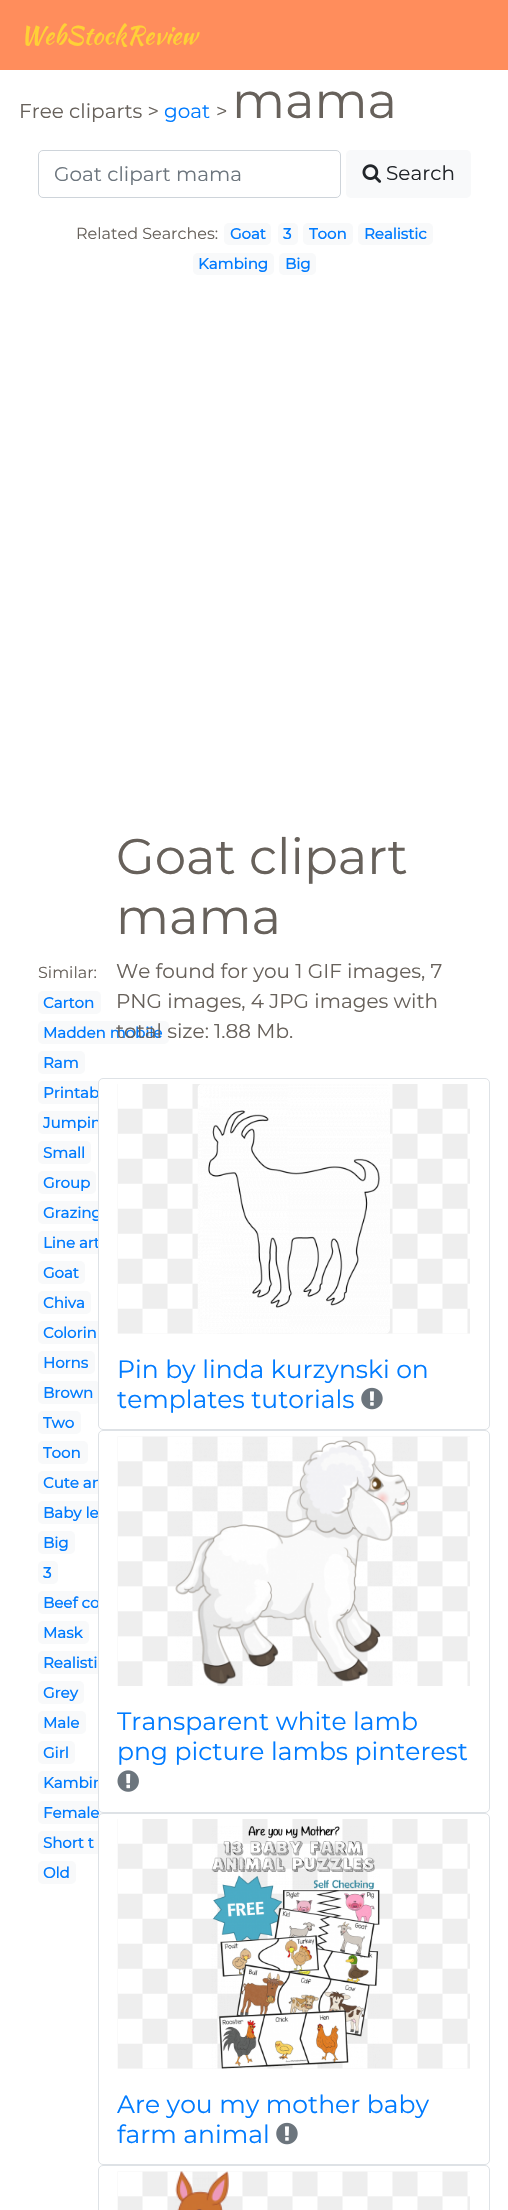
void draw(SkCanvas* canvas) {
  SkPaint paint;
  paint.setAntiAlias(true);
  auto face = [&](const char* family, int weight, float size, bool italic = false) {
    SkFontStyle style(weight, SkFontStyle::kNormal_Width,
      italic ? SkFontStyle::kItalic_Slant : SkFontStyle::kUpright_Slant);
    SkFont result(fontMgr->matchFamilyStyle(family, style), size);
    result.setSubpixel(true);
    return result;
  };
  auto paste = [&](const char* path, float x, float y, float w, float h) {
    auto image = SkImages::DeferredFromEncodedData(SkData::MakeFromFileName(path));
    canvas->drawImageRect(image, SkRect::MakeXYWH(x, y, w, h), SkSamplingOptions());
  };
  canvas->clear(0xffffffff);
  paint.setColor(0xffff8d5c);
  canvas->drawRect(SkRect::MakeXYWH(0, 0, 508, 70), paint);
  paint.setStroke(true);
  paint.setStrokeWidth(1);
  paint.setColor(0xffced4da);
  canvas->drawRoundRect(SkRect::MakeXYWH(38.5f, 150.5f, 302, 47), 4.5f, 4.5f, paint);
  paint.setStroke(false);
  paint.setColor(0xfff8f9fa);
  canvas->drawRoundRect(SkRect::MakeXYWH(346, 150, 125, 48), 5, 5, paint);
  paste("img/1.png", 362, 164, 20, 19);
  canvas->drawRoundRect(SkRect::MakeXYWH(224, 223, 47, 22), 5, 5, paint);
  canvas->drawRoundRect(SkRect::MakeXYWH(278, 223, 20, 22), 5, 5, paint);
  canvas->drawRoundRect(SkRect::MakeXYWH(303, 223, 50, 22), 5, 5, paint);
  canvas->drawRoundRect(SkRect::MakeXYWH(358, 223, 75, 22), 5, 5, paint);
  canvas->drawRoundRect(SkRect::MakeXYWH(193, 253, 81, 22), 5, 5, paint);
  canvas->drawRoundRect(SkRect::MakeXYWH(279, 253, 37, 22), 5, 5, paint);
  canvas->drawRoundRect(SkRect::MakeXYWH(38, 991, 63, 23), 5, 5, paint);
  canvas->drawRoundRect(SkRect::MakeXYWH(38, 1021, 131, 23), 5, 5, paint);
  canvas->drawRoundRect(SkRect::MakeXYWH(38, 1051, 47, 23), 5, 5, paint);
  canvas->drawRoundRect(SkRect::MakeXYWH(38, 1081, 81, 23), 5, 5, paint);
  canvas->drawRoundRect(SkRect::MakeXYWH(38, 1111, 80, 23), 5, 5, paint);
  canvas->drawRoundRect(SkRect::MakeXYWH(38, 1141, 53, 23), 5, 5, paint);
  canvas->drawRoundRect(SkRect::MakeXYWH(38, 1171, 58, 23), 5, 5, paint);
  canvas->drawRoundRect(SkRect::MakeXYWH(38, 1201, 70, 23), 5, 5, paint);
  canvas->drawRoundRect(SkRect::MakeXYWH(38, 1231, 68, 23), 5, 5, paint);
  canvas->drawRoundRect(SkRect::MakeXYWH(38, 1261, 47, 23), 5, 5, paint);
  canvas->drawRoundRect(SkRect::MakeXYWH(38, 1291, 53, 23), 5, 5, paint);
  canvas->drawRoundRect(SkRect::MakeXYWH(38, 1321, 118, 23), 5, 5, paint);
  canvas->drawRoundRect(SkRect::MakeXYWH(38, 1351, 57, 23), 5, 5, paint);
  canvas->drawRoundRect(SkRect::MakeXYWH(38, 1381, 62, 23), 5, 5, paint);
  canvas->drawRoundRect(SkRect::MakeXYWH(38, 1411, 43, 23), 5, 5, paint);
  canvas->drawRoundRect(SkRect::MakeXYWH(38, 1441, 50, 23), 5, 5, paint);
  canvas->drawRoundRect(SkRect::MakeXYWH(38, 1471, 100, 23), 5, 5, paint);
  canvas->drawRoundRect(SkRect::MakeXYWH(38, 1501, 100, 23), 5, 5, paint);
  canvas->drawRoundRect(SkRect::MakeXYWH(38, 1531, 37, 23), 5, 5, paint);
  canvas->drawRoundRect(SkRect::MakeXYWH(38, 1561, 20, 23), 5, 5, paint);
  canvas->drawRoundRect(SkRect::MakeXYWH(38, 1591, 81, 23), 5, 5, paint);
  canvas->drawRoundRect(SkRect::MakeXYWH(38, 1621, 51, 23), 5, 5, paint);
  canvas->drawRoundRect(SkRect::MakeXYWH(38, 1651, 75, 23), 5, 5, paint);
  canvas->drawRoundRect(SkRect::MakeXYWH(38, 1681, 46, 23), 5, 5, paint);
  canvas->drawRoundRect(SkRect::MakeXYWH(38, 1711, 48, 23), 5, 5, paint);
  canvas->drawRoundRect(SkRect::MakeXYWH(38, 1741, 37, 23), 5, 5, paint);
  canvas->drawRoundRect(SkRect::MakeXYWH(38, 1771, 82, 23), 5, 5, paint);
  canvas->drawRoundRect(SkRect::MakeXYWH(38, 1801, 68, 23), 5, 5, paint);
  canvas->drawRoundRect(SkRect::MakeXYWH(38, 1831, 80, 23), 5, 5, paint);
  canvas->drawRoundRect(SkRect::MakeXYWH(38, 1861, 38, 23), 5, 5, paint);
  paint.setStroke(true);
  paint.setColor(0xffdee2e6);
  canvas->drawRoundRect(SkRect::MakeXYWH(98.5f, 2165.5f, 391, 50), 4.5f, 4.5f, paint);
  paste("img/9.png", 117, 2171, 353, 39);
  paste("img/10.png", 175, 2171, 54, 39);
  auto f0 = face("Kaushan Script", 400, 25);
  paint.setStroke(false);
  paint.setColor(0xfffed136);
  canvas->drawString("WebStockReview", 20, 44, f0, paint);
  auto f1 = face("Montserrat", 100, 20);
  paint.setColor(0xff67615b);
  canvas->drawString("Free cliparts >", 19, 118, f1, paint);
  paint.setColor(0xff007bff);
  canvas->drawString("goat", 164, 118, f1, paint);
  paint.setColor(0xff67615b);
  canvas->drawString(">", 216, 118, f1, paint);
  auto f2 = face("Montserrat", 100, 50);
  canvas->drawString("mama", 232, 118, f2, paint);
  paint.setColor(0xff6c757d);
  canvas->drawString("Goat clipart mama", 54, 181, f1, paint);
  paint.setColor(0xff212529);
  canvas->drawString("Search", 386, 180, f1, paint);
  auto f3 = face("Montserrat", 100, 16);
  paint.setColor(0xff67615b);
  canvas->drawString("Related Searches:", 76, 239, f3, paint);
  auto f4 = face("Montserrat", 700, 15);
  paint.setColor(0xff007bff);
  {
    const struct { const char* s; float x, y; } items[] = {
      {"Goat", 230, 239},
      {"3", 283, 239},
      {"Toon", 309, 239},
      {"Realistic", 364, 239},
      {"Kambing", 198, 269},
      {"Big", 285, 269},
    };
    for (auto [s, x, y] : items) {
      canvas->drawString(s, x, y, f4, paint);
    }
  }
  paint.setColor(0xff67615b);
  canvas->drawString("Goat clipart", 116, 874, f2, paint);
  canvas->drawString("mama", 116, 934, f2, paint);
  canvas->drawString("Similar:", 38, 978, f3, paint);
  paint.setColor(0xff007bff);
  {
    const struct { const char* s; float x, y; } items[] = {
      {"Carton", 43, 1008},
      {"Madden mobile", 43, 1038},
      {"Ram", 43, 1068},
      {"Printab", 43, 1098},
      {"Jumpin", 43, 1128},
      {"Small", 43, 1158},
      {"Group", 43, 1188},
      {"Grazing", 43, 1218},
      {"Line art", 43, 1248},
      {"Goat", 43, 1278},
      {"Chiva", 43, 1308},
      {"Colorin", 43, 1338},
      {"Horns", 43, 1368},
      {"Brown", 43, 1398},
      {"Two", 43, 1428},
      {"Toon", 43, 1458},
      {"Cute an", 43, 1488},
      {"Baby le", 43, 1518},
      {"Big", 43, 1548},
      {"3", 43, 1578},
      {"Beef co", 43, 1608},
      {"Mask", 43, 1638},
      {"Realisti", 43, 1668},
      {"Grey", 43, 1698},
      {"Male", 43, 1728},
      {"Girl", 43, 1758},
      {"Kambin", 43, 1788},
      {"Female", 43, 1818},
      {"Short t", 43, 1848},
      {"Old", 43, 1878},
    };
    for (auto [s, x, y] : items) {
      canvas->drawString(s, x, y, f4, paint);
    }
  }
  paint.setColor(0xff67615b);
  {
    const struct { const char* s; float x, y; } items[] = {
      {"We found for you 1 GIF images, 7", 116, 978},
      {"PNG images, 4 JPG images with", 116, 1008},
      {"total size: 1.88 Mb.", 116, 1038},
    };
    for (auto [s, x, y] : items) {
      canvas->drawString(s, x, y, f1, paint);
    }
  }
  paint.setColor(0xffffffff);
  canvas->drawRoundRect(SkRect::MakeXYWH(98.5f, 1078.5f, 391, 351), 4.5f, 4.5f, paint);
  paint.setStroke(true);
  paint.setColor(0xffdee2e6);
  canvas->drawRoundRect(SkRect::MakeXYWH(98.5f, 1078.5f, 391, 351), 4.5f, 4.5f, paint);
  paste("img/2.png", 117, 1084, 353, 250);
  paste("img/3.png", 197, 1084, 193, 250);
  auto f5 = face("Montserrat", 100, 25);
  paint.setStroke(false);
  paint.setColor(0xff007bff);
  canvas->drawString("Pin by linda kurzynski on", 117, 1378, f5, paint);
  canvas->drawString("templates tutorials", 117, 1408, f5, paint);
  paste("img/4.png", 361, 1387, 22, 23);
  paint.setColor(0xffffffff);
  canvas->drawRoundRect(SkRect::MakeXYWH(98.5f, 1430.5f, 391, 382), 4.5f, 4.5f, paint);
  paint.setStroke(true);
  paint.setColor(0xffdee2e6);
  canvas->drawRoundRect(SkRect::MakeXYWH(98.5f, 1430.5f, 391, 382), 4.5f, 4.5f, paint);
  paste("img/5.png", 117, 1436, 353, 250);
  paste("img/6.png", 175, 1440, 236, 245);
  paint.setStroke(false);
  paint.setColor(0xff007bff);
  canvas->drawString("Transparent white lamb", 117, 1730, f5, paint);
  canvas->drawString("png picture lambs pinterest", 117, 1760, f5, paint);
  paste("img/7.png", 117, 1770, 22, 22);
  paint.setColor(0xffffffff);
  canvas->drawRoundRect(SkRect::MakeXYWH(98.5f, 1813.5f, 391, 351), 4.5f, 4.5f, paint);
  paint.setStroke(true);
  paint.setColor(0xffdee2e6);
  canvas->drawRoundRect(SkRect::MakeXYWH(98.5f, 1813.5f, 391, 351), 4.5f, 4.5f, paint);
  paste("img/2.png", 117, 1819, 353, 250);
  paste("img/8.png", 211, 1826, 169, 243);
  paint.setStroke(false);
  paint.setColor(0xff007bff);
  canvas->drawString("Are you my mother baby", 117, 2113, f5, paint);
  canvas->drawString("farm animal", 117, 2143, f5, paint);
  paste("img/4.png", 276, 2122, 22, 23);
}
